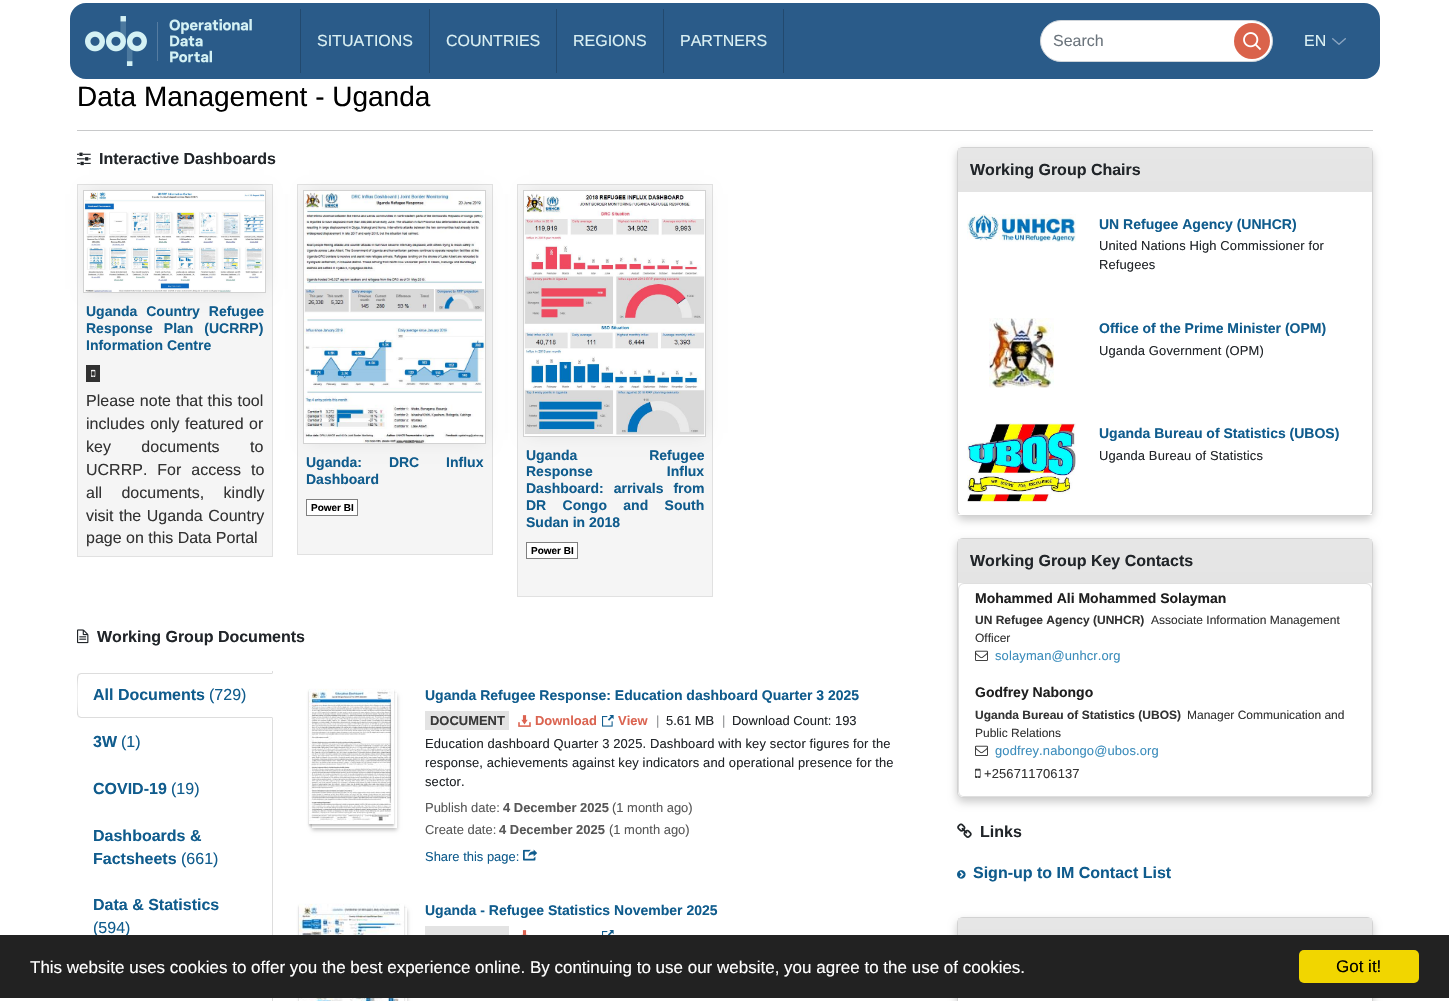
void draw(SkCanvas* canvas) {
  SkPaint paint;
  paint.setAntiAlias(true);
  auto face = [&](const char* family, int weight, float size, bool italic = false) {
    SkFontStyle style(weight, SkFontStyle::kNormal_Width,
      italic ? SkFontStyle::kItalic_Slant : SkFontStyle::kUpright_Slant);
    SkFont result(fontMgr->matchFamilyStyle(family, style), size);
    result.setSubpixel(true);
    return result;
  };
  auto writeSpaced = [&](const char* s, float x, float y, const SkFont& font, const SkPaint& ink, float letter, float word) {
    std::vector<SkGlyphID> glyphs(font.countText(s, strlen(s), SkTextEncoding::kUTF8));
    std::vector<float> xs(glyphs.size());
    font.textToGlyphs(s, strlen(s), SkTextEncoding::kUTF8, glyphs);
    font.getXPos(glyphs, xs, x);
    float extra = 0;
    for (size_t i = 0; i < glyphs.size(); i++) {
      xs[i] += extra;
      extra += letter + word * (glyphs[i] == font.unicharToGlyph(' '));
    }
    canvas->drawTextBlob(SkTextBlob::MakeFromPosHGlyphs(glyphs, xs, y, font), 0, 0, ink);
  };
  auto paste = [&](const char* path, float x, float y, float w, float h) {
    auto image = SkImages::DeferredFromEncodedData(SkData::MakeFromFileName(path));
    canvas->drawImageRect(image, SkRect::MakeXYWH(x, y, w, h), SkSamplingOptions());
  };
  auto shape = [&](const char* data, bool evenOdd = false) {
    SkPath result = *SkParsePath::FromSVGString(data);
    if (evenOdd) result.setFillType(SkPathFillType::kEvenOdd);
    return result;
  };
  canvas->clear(0xffffffff);
  paint.setColor(0xff2a5b89);
  canvas->drawRoundRect(SkRect::MakeXYWH(71.5f, 4.5f, 1307, 73), 14.5f, 14.5f, paint);
  paint.setStroke(true);
  paint.setStrokeWidth(3);
  canvas->drawRoundRect(SkRect::MakeXYWH(71.5f, 4.5f, 1307, 73), 14.5f, 14.5f, paint);
  paste("img/1.png", 85, 16, 167, 50);
  paint.setStroke(false);
  {
    const struct { float x, y, w, h; SkColor color; } items[] = {
      {300, 9, 1, 64, 0xff22496e},
      {429, 9, 1, 64, 0xff22496e},
      {556, 9, 1, 64, 0xff22496e},
      {783, 9, 1, 64, 0xff22496e},
      {663, 9, 1, 64, 0xff22496e},
    };
    for (auto [x, y, w, h, color] : items) {
      paint.setColor(color);
      canvas->drawRect(SkRect::MakeXYWH(x, y, w, h), paint);
    }
  }
  paint.setColor(0xffffffff);
  canvas->drawRoundRect(SkRect::MakeXYWH(1040.5f, 20.5f, 232, 41), 20.5f, 20.5f, paint);
  paint.setStroke(true);
  paint.setStrokeWidth(1);
  paint.setColor(0xffced4da);
  canvas->drawRoundRect(SkRect::MakeXYWH(1040.5f, 20.5f, 232, 41), 20.5f, 20.5f, paint);
  paint.setStroke(false);
  paint.setColor(0xffda634b);
  canvas->drawCircle(1252, 41, 18, paint);
  paste("img/2.png", 1243, 32, 19, 19);
  paste("img/3.png", 1332, 38, 14, 7);
  paint.setColor(0xffc8c9ca);
  canvas->drawRect(SkRect::MakeXYWH(77, 130, 1296, 1), paint);
  paste("img/4.png", 77, 152, 14, 14);
  paint.setColor(0xfff5f5f5);
  canvas->drawRect(SkRect::MakeXYWH(77.5f, 184.5f, 195, 372), paint);
  paint.setStroke(true);
  paint.setColor(0xffe1e1e1);
  canvas->drawRect(SkRect::MakeXYWH(77.5f, 184.5f, 195, 372), paint);
  paint.setStroke(false);
  paint.setColor(0x1a000000);
  paint.setMaskFilter(SkMaskFilter::MakeBlur(kNormal_SkBlurStyle, 8));
  canvas->drawRect(SkRect::MakeXYWH(89, 194, 175, 95), paint);
  paint.setMaskFilter(nullptr);
  paint.setColor(0xffffffff);
  canvas->drawRect(SkRect::MakeXYWH(84, 191, 181, 1), paint);
  paint.setStroke(true);
  paint.setColor(0xffd2d2d2);
  canvas->drawRect(SkRect::MakeXYWH(83.5f, 190.5f, 182, 102), paint);
  paste("img/5.png", 84, 192, 181, 100);
  paint.setStroke(false);
  paint.setColor(0xff313131);
  canvas->drawRect(SkRect::MakeXYWH(86, 365, 14, 17), paint);
  paste("img/6.png", 91, 369, 5, 8);
  paint.setColor(0xfff5f5f5);
  canvas->drawRect(SkRect::MakeXYWH(297.5f, 184.5f, 195, 370), paint);
  paint.setStroke(true);
  paint.setColor(0xffe1e1e1);
  canvas->drawRect(SkRect::MakeXYWH(297.5f, 184.5f, 195, 370), paint);
  paint.setStroke(false);
  paint.setColor(0x1a000000);
  paint.setMaskFilter(SkMaskFilter::MakeBlur(kNormal_SkBlurStyle, 8));
  canvas->drawRect(SkRect::MakeXYWH(309, 194, 175, 246), paint);
  paint.setMaskFilter(nullptr);
  paint.setStroke(true);
  paint.setColor(0xffd2d2d2);
  canvas->drawRect(SkRect::MakeXYWH(303.5f, 190.5f, 182, 253), paint);
  paste("img/7.png", 304, 191, 181, 252);
  paint.setStroke(false);
  paint.setColor(0xffffffff);
  canvas->drawRect(SkRect::MakeXYWH(306.5f, 499.5f, 51, 16), paint);
  paint.setStroke(true);
  paint.setColor(0xff808080);
  canvas->drawRect(SkRect::MakeXYWH(306.5f, 499.5f, 51, 16), paint);
  paint.setStroke(false);
  paint.setColor(0xfff5f5f5);
  canvas->drawRect(SkRect::MakeXYWH(517.5f, 184.5f, 195, 412), paint);
  paint.setStroke(true);
  paint.setColor(0xffe1e1e1);
  canvas->drawRect(SkRect::MakeXYWH(517.5f, 184.5f, 195, 412), paint);
  paint.setStroke(false);
  paint.setColor(0x1a000000);
  paint.setMaskFilter(SkMaskFilter::MakeBlur(kNormal_SkBlurStyle, 8));
  canvas->drawRect(SkRect::MakeXYWH(529, 194, 175, 239), paint);
  paint.setMaskFilter(nullptr);
  paint.setColor(0xffffffff);
  canvas->drawRect(SkRect::MakeXYWH(524, 435, 181, 1), paint);
  paint.setStroke(true);
  paint.setColor(0xffd2d2d2);
  canvas->drawRect(SkRect::MakeXYWH(523.5f, 190.5f, 182, 246), paint);
  paste("img/8.png", 524, 191, 181, 244);
  paint.setStroke(false);
  paint.setColor(0xffffffff);
  canvas->drawRect(SkRect::MakeXYWH(526.5f, 542.5f, 51, 16), paint);
  paint.setStroke(true);
  paint.setColor(0xff808080);
  canvas->drawRect(SkRect::MakeXYWH(526.5f, 542.5f, 51, 16), paint);
  paste("img/9.png", 77, 629, 12, 15);
  paint.setStroke(false);
  paint.setColor(0xffdddddd);
  canvas->drawRect(SkRect::MakeXYWH(272, 671, 1, 330), paint);
  paint.setColor(0xffffffff);
  canvas->drawPath(shape("M81 673H273V718H81C79 718 77 716 77 714V677C77 675 79 673 81 673Z"), paint);
  paint.setColor(0xffdddddd);
  canvas->drawPath(shape("M81 673L78 674L79 675L81 674H272L273 673Z"), paint);
  canvas->drawPath(shape("M273 718L272 717H81L79 716L78 717L81 718Z"), paint);
  canvas->drawPath(shape("M77 677V714C77 715 78 716 78 717L79 716C77 715 77 676 79 675L78 674Z"), paint);
  paint.setColor(0x40000000);
  paint.setMaskFilter(SkMaskFilter::MakeBlur(kNormal_SkBlurStyle, 1));
  canvas->drawRect(SkRect::MakeXYWH(309, 691, 85, 135), paint);
  paint.setMaskFilter(nullptr);
  canvas->save();
  canvas->clipPath(shape("M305 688H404V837H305ZM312 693H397V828H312Z", true), true);
  paint.setMaskFilter(SkMaskFilter::MakeBlur(kNormal_SkBlurStyle, 2));
  canvas->drawRect(SkRect::MakeXYWH(312, 695, 85, 135), paint);
  paint.setMaskFilter(nullptr);
  canvas->restore();
  paste("img/10.png", 309, 689, 85, 135);
  paint.setColor(0xffe3e3e3);
  canvas->drawRect(SkRect::MakeXYWH(425, 711, 84, 19), paint);
  paste("img/11.png", 518, 715, 13, 12);
  paste("img/12.png", 602, 715, 12, 12);
  paste("img/13.png", 523, 849, 15, 12);
  paint.setColor(0x40000000);
  paint.setMaskFilter(SkMaskFilter::MakeBlur(kNormal_SkBlurStyle, 1));
  canvas->drawRect(SkRect::MakeXYWH(299, 906, 105, 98), paint);
  paint.setMaskFilter(nullptr);
  canvas->save();
  canvas->clipPath(shape("M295 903H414V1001H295ZM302 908H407V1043H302Z", true), true);
  paint.setMaskFilter(SkMaskFilter::MakeBlur(kNormal_SkBlurStyle, 2));
  canvas->drawRect(SkRect::MakeXYWH(302, 910, 105, 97), paint);
  paint.setMaskFilter(nullptr);
  canvas->restore();
  paste("img/14.png", 299, 904, 105, 97);
  paint.setColor(0xffe3e3e3);
  canvas->drawRect(SkRect::MakeXYWH(425, 926, 84, 9), paint);
  paste("img/15.png", 521, 930, 7, 5);
  paste("img/16.png", 602, 930, 12, 5);
  paint.setColor(0x33000000);
  paint.setMaskFilter(SkMaskFilter::MakeBlur(kNormal_SkBlurStyle, 4));
  canvas->drawRoundRect(SkRect::MakeXYWH(957, 151, 416, 369), 6, 6, paint);
  paint.setMaskFilter(nullptr);
  paint.setColor(0xffffffff);
  canvas->drawRoundRect(SkRect::MakeXYWH(957.5f, 147.5f, 415, 368), 5.5f, 5.5f, paint);
  paint.setStroke(true);
  paint.setColor(0xffd2d2d2);
  canvas->drawRoundRect(SkRect::MakeXYWH(957.5f, 147.5f, 415, 368), 5.5f, 5.5f, paint);
  paint.setStroke(false);
  {
    const SkColor colors[] = {0xffe6e6e6, 0xffe4e4e4};
    const float stops[] = {0, 1};
    const SkPoint ends[] = {{1165, 148}, {1165, 192}};
    paint.setShader(SkGradientShader::MakeLinear(ends, colors, stops, 2, SkTileMode::kClamp));
    paint.setAlpha(255);
  }
  canvas->drawRect(SkRect::MakeXYWH(958, 148, 414, 44), paint);
  paste("img/17.png", 967, 214, 109, 28);
  paste("img/18.png", 989, 318, 65, 70);
  paint.setShader(nullptr);
  paint.setColor(0xffffffff);
  canvas->drawRect(SkRect::MakeXYWH(958, 514, 414, 1), paint);
  paste("img/19.png", 967, 423, 109, 79);
  paint.setColor(0x33000000);
  paint.setMaskFilter(SkMaskFilter::MakeBlur(kNormal_SkBlurStyle, 4));
  canvas->drawRoundRect(SkRect::MakeXYWH(957, 542, 416, 260), 6, 6, paint);
  paint.setMaskFilter(nullptr);
  paint.setColor(0xffffffff);
  canvas->drawRoundRect(SkRect::MakeXYWH(957.5f, 538.5f, 415, 259), 5.5f, 5.5f, paint);
  paint.setStroke(true);
  paint.setColor(0xffd2d2d2);
  canvas->drawRoundRect(SkRect::MakeXYWH(957.5f, 538.5f, 415, 259), 5.5f, 5.5f, paint);
  paint.setStroke(false);
  {
    const SkColor colors[] = {0xffe6e6e6, 0xffe4e4e4};
    const float stops[] = {0, 1};
    const SkPoint ends[] = {{1165, 539}, {1165, 583}};
    paint.setShader(SkGradientShader::MakeLinear(ends, colors, stops, 2, SkTileMode::kClamp));
    paint.setAlpha(255);
  }
  canvas->drawRect(SkRect::MakeXYWH(958, 539, 414, 44), paint);
  paint.setStroke(true);
  paint.setShader(nullptr);
  paint.setColor(0xffdfdfdf);
  canvas->drawPath(shape("M964 583.5H1366C1369 583.5 1371.5 586 1371.5 589V678.5H958.5V589C958.5 586 961 583.5 964 583.5Z"), paint);
  paste("img/20.png", 975, 650, 13, 11);
  paint.setStroke(false);
  paint.setColor(0xffffffff);
  canvas->drawPath(shape("M958 678H1372V791C1372 794.5 1369.5 797 1366 797H964C960.5 797 958 794.5 958 791Z"), paint);
  paint.setColor(0xffdfdfdf);
  canvas->drawPath(shape("M958 678H1372V791C1372 794 1369 797 1366 797H964C961 797 958 794 958 791ZM959 678H1371V791C1371 794 1369 796 1366 796H964C961 796 959 794 959 791Z", true), paint);
  paste("img/20.png", 975, 745, 13, 11);
  paste("img/21.png", 975, 768, 6, 10);
  paste("img/22.png", 957, 823, 15, 15);
  paste("img/23.png", 957, 870, 9, 9);
  paint.setColor(0x33000000);
  paint.setMaskFilter(SkMaskFilter::MakeBlur(kNormal_SkBlurStyle, 4));
  canvas->drawRoundRect(SkRect::MakeXYWH(957, 921, 416, 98), 6, 6, paint);
  paint.setMaskFilter(nullptr);
  paint.setColor(0xffffffff);
  canvas->drawRoundRect(SkRect::MakeXYWH(957.5f, 917.5f, 415, 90), 5.5f, 5.5f, paint);
  paint.setStroke(true);
  paint.setColor(0xffd2d2d2);
  canvas->drawRoundRect(SkRect::MakeXYWH(957.5f, 917.5f, 415, 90), 5.5f, 5.5f, paint);
  paint.setStroke(false);
  {
    const SkColor colors[] = {0xffe6e6e6, 0xffe4e4e4};
    const float stops[] = {0, 1};
    const SkPoint ends[] = {{1165, 918}, {1165, 962}};
    paint.setShader(SkGradientShader::MakeLinear(ends, colors, stops, 2, SkTileMode::kClamp));
    paint.setAlpha(255);
  }
  canvas->drawRect(SkRect::MakeXYWH(958, 918, 414, 17), paint);
  auto f0 = face("Liberation Sans", 400, 16);
  paint.setShader(nullptr);
  paint.setColor(0xffdaf0f3);
  {
    const struct { const char* s; float x, y; } items[] = {
      {"SITUATIONS", 317, 46},
      {"COUNTRIES", 446, 46},
      {"REGIONS", 573, 46},
      {"PARTNERS", 680, 46},
    };
    for (auto [s, x, y] : items) {
      canvas->drawString(s, x, y, f0, paint);
    }
  }
  paint.setColor(0xff6c757d);
  canvas->drawString("Search", 1053, 46, f0, paint);
  paint.setColor(0xffdaf0f3);
  canvas->drawString("EN", 1304, 46, f0, paint);
  auto f1 = face("Liberation Sans", 400, 28);
  paint.setColor(0xff000000);
  canvas->drawString("Data Management - Uganda", 77, 106, f1, paint);
  auto f2 = face("Liberation Sans", 700, 16);
  paint.setColor(0xff212529);
  canvas->drawString("Interactive Dashboards", 99, 164, f2, paint);
  auto f3 = face("Liberation Sans", 700, 14);
  paint.setColor(0xff105c8d);
  writeSpaced("Uganda Country Refugee", 86, 316, f3, paint, 0, 5);
  writeSpaced("Response Plan (UCRRP)", 86, 333, f3, paint, 0, 7);
  canvas->drawString("Information Centre", 86, 350, f3, paint);
  paint.setColor(0xff333333);
  writeSpaced("Please note that this tool", 86, 406, f0, paint, 0, 0.5f);
  writeSpaced("includes only featured or", 86, 429, f0, paint, 0, 1);
  writeSpaced("key documents to", 86, 452, f0, paint, 0, 26);
  writeSpaced("UCRRP. For access to", 86, 475, f0, paint, 0, 5.5f);
  writeSpaced("all documents, kindly", 86, 498, f0, paint, 0, 15);
  writeSpaced("visit the Uganda Country", 86, 521, f0, paint, 0, 1);
  canvas->drawString("page on this Data Portal", 86, 543, f0, paint);
  paint.setColor(0xff105c8d);
  writeSpaced("Uganda: DRC Influx", 306, 467, f3, paint, 0, 23);
  canvas->drawString("Dashboard", 306, 484, f3, paint);
  auto f4 = face("Liberation Sans", 700, 10);
  paint.setColor(0xff000000);
  canvas->drawString("Power BI", 311, 511, f4, paint);
  paint.setColor(0xff105c8d);
  writeSpaced("Uganda Refugee", 526, 460, f3, paint, 0, 68);
  writeSpaced("Response Influx", 526, 476, f3, paint, 0, 70);
  writeSpaced("Dashboard: arrivals from", 526, 493, f3, paint, 0, 6);
  writeSpaced("DR Congo and South", 526, 510, f3, paint, 0, 12.5f);
  canvas->drawString("Sudan in 2018", 526, 527, f3, paint);
  paint.setColor(0xff000000);
  canvas->drawString("Power BI", 531, 554, f4, paint);
  paint.setColor(0xff212529);
  canvas->drawString("Working Group Documents", 97, 642, f2, paint);
  paint.setColor(0xff105c8d);
  canvas->drawString("All Documents", 93, 700, f2, paint);
  canvas->drawString("(729)", 209, 700, f0, paint);
  canvas->drawString("3W", 93, 747, f2, paint);
  canvas->drawString("(1)", 121, 747, f0, paint);
  canvas->drawString("COVID-19", 93, 794, f2, paint);
  canvas->drawString("(19)", 171, 794, f0, paint);
  canvas->drawString("Dashboards &", 93, 841, f2, paint);
  canvas->drawString("Factsheets", 93, 864, f2, paint);
  canvas->drawString("(661)", 181, 864, f0, paint);
  canvas->drawString("Data & Statistics", 93, 910, f2, paint);
  canvas->drawString("(594)", 93, 933, f0, paint);
  canvas->drawString("Uganda Refugee Response: Education dashboard Quarter 3 2025", 425, 700, f3, paint);
  auto f5 = face("Liberation Sans", 700, 12.95f);
  paint.setColor(0xff393939);
  canvas->drawString("DOCUMENT", 430, 725, f5, paint);
  paint.setColor(0xffdb6451);
  canvas->drawString("Download", 535, 725, f5, paint);
  canvas->drawString("View", 618, 725, f5, paint);
  auto f6 = face("Liberation Sans", 400, 12.95f);
  paint.setColor(0xff909294);
  canvas->drawString("|", 656, 725, f6, paint);
  paint.setColor(0xff212529);
  canvas->drawString("5.61 MB", 666, 725, f6, paint);
  paint.setColor(0xff909294);
  canvas->drawString("|", 722, 725, f6, paint);
  paint.setColor(0xff212529);
  canvas->drawString("Download Count: 193", 732, 725, f6, paint);
  {
    const struct { const char* s; float x, y; } items[] = {
      {"Education dashboard Quarter 3 2025. Dashboard with key sector figures for the", 425, 748},
      {"response, achievements against key indicators and operational presence for the", 425, 767},
      {"sector.", 425, 786},
    };
    for (auto [s, x, y] : items) {
      writeSpaced(s, x, y, f6, paint, 0.13f, 0);
    }
  }
  paint.setColor(0xff585858);
  canvas->drawString("Publish date:", 425, 812, f6, paint);
  canvas->drawString("4 December 2025", 503, 812, f5, paint);
  canvas->drawString("(1 month ago)", 612, 812, f6, paint);
  canvas->drawString("Create date:", 425, 834, f6, paint);
  canvas->drawString("4 December 2025", 499, 834, f5, paint);
  canvas->drawString("(1 month ago)", 609, 834, f6, paint);
  paint.setColor(0xff105c8d);
  canvas->drawString("Share this page:", 425, 861, f6, paint);
  canvas->drawString("Uganda - Refugee Statistics November 2025", 425, 915, f3, paint);
  paint.setColor(0xff212529);
  canvas->drawString("Working Group Chairs", 970, 175, f2, paint);
  paint.setColor(0xff105c8d);
  canvas->drawString("UN Refugee Agency (UNHCR)", 1099, 229, f3, paint);
  paint.setColor(0xff212529);
  writeSpaced("United Nations High Commissioner for", 1099, 250, f6, paint, 0.13f, 0);
  writeSpaced("Refugees", 1099, 269, f6, paint, 0.13f, 0);
  paint.setColor(0xff105c8d);
  canvas->drawString("Office of the Prime Minister (OPM)", 1099, 333, f3, paint);
  paint.setColor(0xff212529);
  writeSpaced("Uganda Government (OPM)", 1099, 355, f6, paint, 0.13f, 0);
  paint.setColor(0xff105c8d);
  canvas->drawString("Uganda Bureau of Statistics (UBOS)", 1099, 438, f3, paint);
  paint.setColor(0xff212529);
  writeSpaced("Uganda Bureau of Statistics", 1099, 460, f6, paint, 0.13f, 0);
  canvas->drawString("Working Group Key Contacts", 970, 566, f2, paint);
  paint.setColor(0xff1f1f1f);
  canvas->drawString("Mohammed Ali Mohammed Solayman", 975, 603, f3, paint);
  auto f7 = face("Liberation Sans", 700, 12);
  paint.setColor(0xff333333);
  canvas->drawString("UN Refugee Agency (UNHCR)", 975, 624, f7, paint);
  auto f8 = face("Liberation Sans", 400, 12);
  canvas->drawString("Associate Information Management", 1151, 624, f8, paint);
  canvas->drawString("Officer", 975, 642, f8, paint);
  paint.setColor(0xff3c8dbc);
  writeSpaced("solayman@unhcr.org", 995, 660, f6, paint, 0.13f, 0);
  paint.setColor(0xff1f1f1f);
  canvas->drawString("Godfrey Nabongo", 975, 697, f3, paint);
  paint.setColor(0xff333333);
  canvas->drawString("Uganda Bureau of Statistics (UBOS)", 975, 719, f7, paint);
  canvas->drawString("Manager Communication and", 1187, 719, f8, paint);
  canvas->drawString("Public Relations", 975, 737, f8, paint);
  paint.setColor(0xff3c8dbc);
  writeSpaced("godfrey.nabongo@ubos.org", 995, 755, f6, paint, 0.13f, 0);
  paint.setColor(0xff333333);
  writeSpaced("+256711706137", 984, 778, f6, paint, 0.13f, 0);
  paint.setColor(0xff212529);
  canvas->drawString("Links", 980, 837, f2, paint);
  paint.setColor(0xff105c8d);
  canvas->drawString("Sign-up to IM Contact List", 973, 878, f2, paint);
  paint.setColor(0xff222222);
  canvas->drawRect(SkRect::MakeXYWH(0, 935, 1449, 63), paint);
  auto f9 = face("Liberation Sans", 400, 17);
  paint.setColor(0xffffffff);
  canvas->drawString("This website uses cookies to offer you the best experience online. By continuing to use our website, you agree to the use of cookies.", 30, 973, f9, paint);
  paint.setColor(0xfff1d600);
  canvas->drawRoundRect(SkRect::MakeXYWH(1299, 950, 120, 33), 5, 5, paint);
  paint.setColor(0xff000000);
  canvas->drawString("Got it!", 1336, 972, f9, paint);
}
